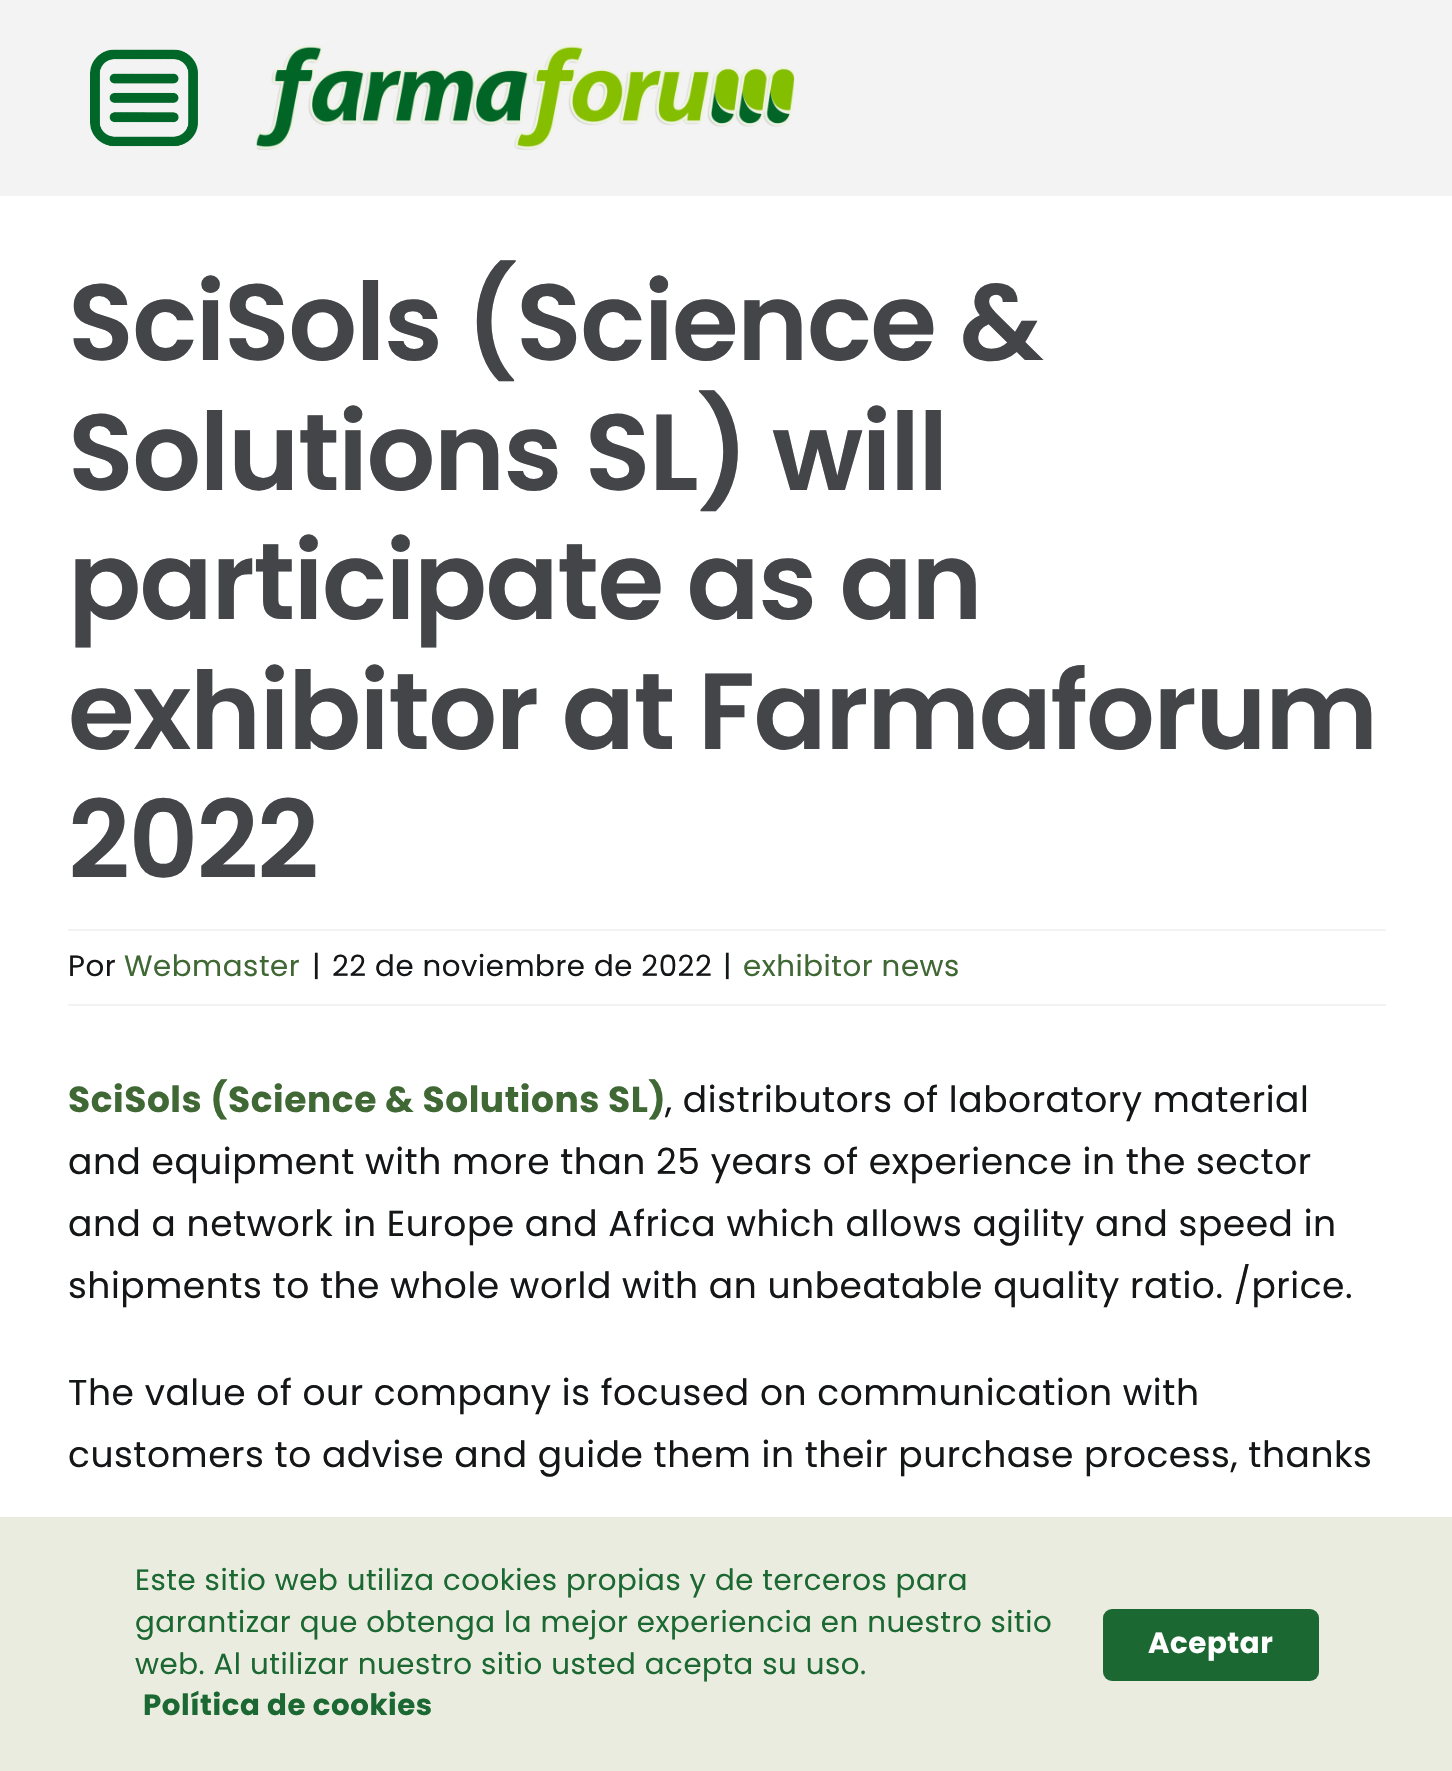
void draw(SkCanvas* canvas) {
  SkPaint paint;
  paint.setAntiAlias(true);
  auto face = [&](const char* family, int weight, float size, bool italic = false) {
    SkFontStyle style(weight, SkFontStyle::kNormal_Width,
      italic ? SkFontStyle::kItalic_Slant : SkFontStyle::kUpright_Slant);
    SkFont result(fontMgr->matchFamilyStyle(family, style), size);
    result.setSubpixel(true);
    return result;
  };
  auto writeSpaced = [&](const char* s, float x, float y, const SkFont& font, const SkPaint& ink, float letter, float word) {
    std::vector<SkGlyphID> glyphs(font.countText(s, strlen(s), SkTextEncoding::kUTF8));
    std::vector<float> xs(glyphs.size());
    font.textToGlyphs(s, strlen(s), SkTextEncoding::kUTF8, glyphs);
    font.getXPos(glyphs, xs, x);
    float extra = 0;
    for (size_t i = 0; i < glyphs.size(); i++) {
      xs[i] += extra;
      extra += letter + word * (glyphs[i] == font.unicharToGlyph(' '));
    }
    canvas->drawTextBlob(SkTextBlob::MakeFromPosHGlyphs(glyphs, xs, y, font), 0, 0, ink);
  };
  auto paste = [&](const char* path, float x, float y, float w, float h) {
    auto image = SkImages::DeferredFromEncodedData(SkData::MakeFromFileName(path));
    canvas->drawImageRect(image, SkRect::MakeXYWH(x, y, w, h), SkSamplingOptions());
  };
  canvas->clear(0xffffffff);
  paint.setColor(0xfff3f3f3);
  canvas->drawRect(SkRect::MakeXYWH(0, 0, 1452, 196), paint);
  paste("img/1.png", 90, 49, 108, 98);
  paste("img/2.png", 256, 45, 539, 105);
  {
    const struct { float x, y, w, h; SkColor color; } items[] = {
      {68, 929, 1318, 2, 0xfff2f3f5},
      {68, 1004, 1318, 2, 0xfff2f3f5},
      {0, 1517, 1452, 254, 0xffe9ecde},
    };
    for (auto [x, y, w, h, color] : items) {
      paint.setColor(color);
      canvas->drawRect(SkRect::MakeXYWH(x, y, w, h), paint);
    }
  }
  paint.setColor(0xff1c6832);
  canvas->drawRoundRect(SkRect::MakeXYWH(1103, 1609, 216, 72), 9, 9, paint);
  auto f0 = face("Poppins", 600, 108);
  paint.setColor(0xff434549);
  {
    const struct { const char* s; float x, y; } items[] = {
      {"SciSols (Science &", 68, 360},
      {"Solutions SL) will", 68, 490},
      {"participate as an", 68, 619},
      {"exhibitor at Farmaforum", 68, 749},
      {"2022", 68, 878},
    };
    for (auto [s, x, y] : items) {
      writeSpaced(s, x, y, f0, paint, -1.6f, 0);
    }
  }
  auto f1 = face("Poppins", 400, 29.25f);
  paint.setColor(0xff141617);
  writeSpaced("Por", 68, 976, f1, paint, 0.55f, 0);
  paint.setColor(0xff406835);
  writeSpaced("Webmaster", 124, 976, f1, paint, 0.55f, 0);
  paint.setColor(0xff141617);
  {
    const struct { const char* s; float x, y; } items[] = {
      {"|", 312, 976},
      {"22 de noviembre de 2022", 332, 976},
      {"|", 723, 976},
    };
    for (auto [s, x, y] : items) {
      writeSpaced(s, x, y, f1, paint, 0.55f, 0);
    }
  }
  paint.setColor(0xff406835);
  writeSpaced("exhibitor news", 743, 976, f1, paint, 0.55f, 0);
  auto f2 = face("Poppins", 700, 36);
  writeSpaced("SciSols (Science & Solutions SL)", 68, 1112, f2, paint, 0.55f, 0);
  auto f3 = face("Poppins", 400, 36);
  paint.setColor(0xff141617);
  {
    const struct { const char* s; float x, y; } items[] = {
      {", distributors of laboratory material", 665, 1112},
      {"and equipment with more than 25 years of experience in the sector", 68, 1174},
      {"and a network in Europe and Africa which allows agility and speed in", 68, 1236},
      {"shipments to the whole world with an unbeatable quality ratio. /price.", 68, 1298},
      {"The value of our company is focused on communication with", 68, 1405},
      {"customers to advise and guide them in their purchase process, thanks", 68, 1467},
    };
    for (auto [s, x, y] : items) {
      writeSpaced(s, x, y, f3, paint, 0.55f, 0);
    }
  }
  paint.setColor(0xff1c6832);
  {
    const struct { const char* s; float x, y; } items[] = {
      {"Este sitio web utiliza cookies propias y de terceros para", 135, 1590},
      {"garantizar que obtenga la mejor experiencia en nuestro sitio", 135, 1632},
      {"web. Al utilizar nuestro sitio usted acepta su uso.", 135, 1674},
    };
    for (auto [s, x, y] : items) {
      writeSpaced(s, x, y, f1, paint, 0.55f, 0);
    }
  }
  auto f4 = face("Poppins", 700, 29.25f);
  writeSpaced("Política de cookies", 143, 1715, f4, paint, 0.55f, 0);
  paint.setColor(0xffffffff);
  writeSpaced("Aceptar", 1148, 1653, f4, paint, 0.55f, 0);
}
